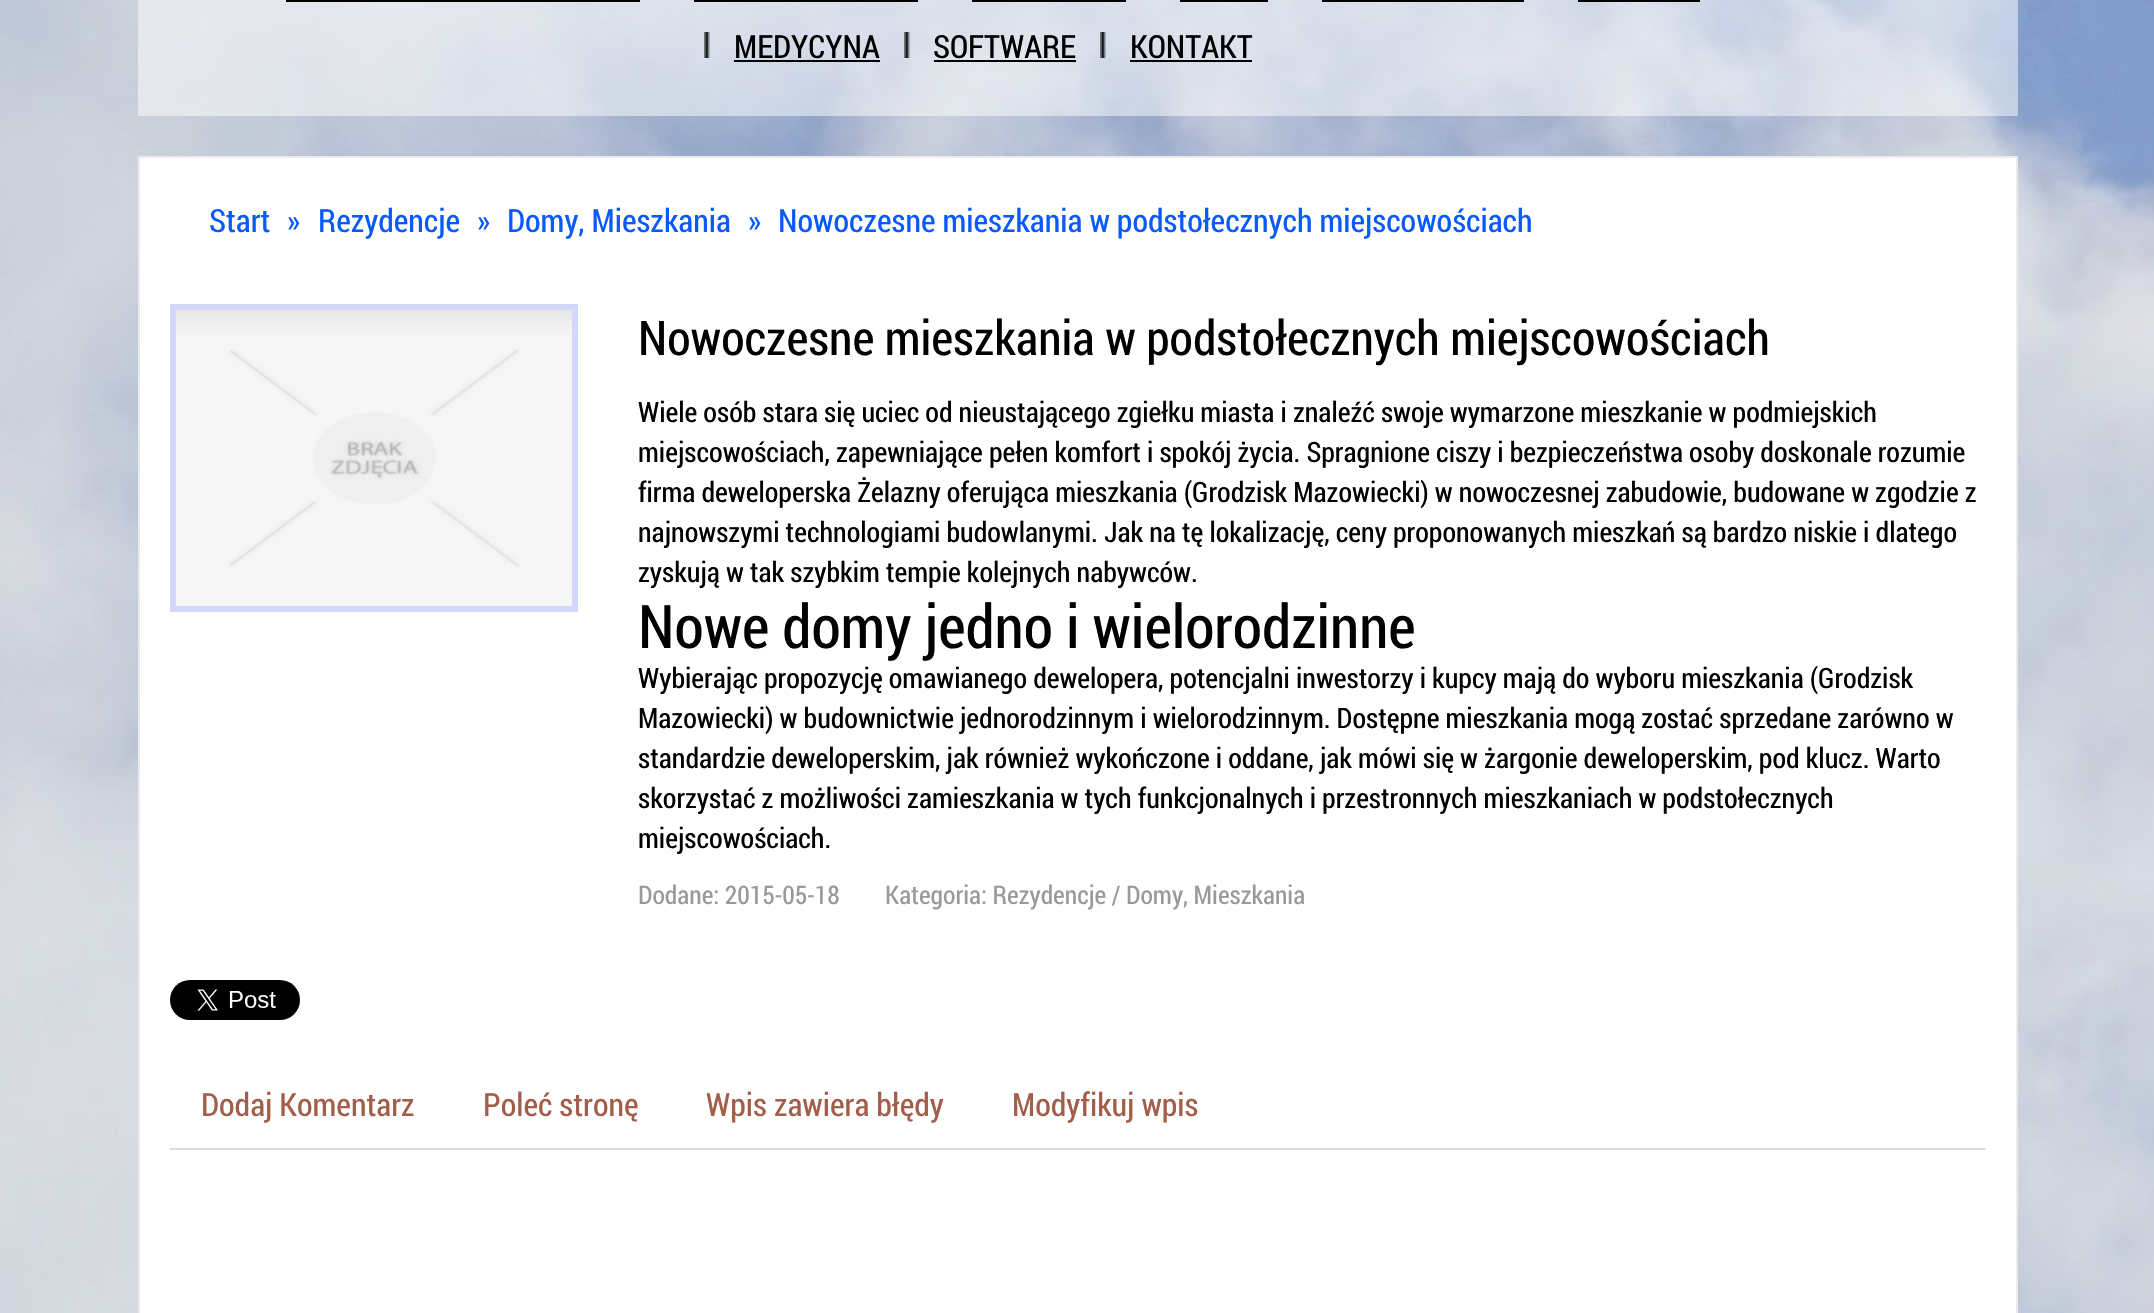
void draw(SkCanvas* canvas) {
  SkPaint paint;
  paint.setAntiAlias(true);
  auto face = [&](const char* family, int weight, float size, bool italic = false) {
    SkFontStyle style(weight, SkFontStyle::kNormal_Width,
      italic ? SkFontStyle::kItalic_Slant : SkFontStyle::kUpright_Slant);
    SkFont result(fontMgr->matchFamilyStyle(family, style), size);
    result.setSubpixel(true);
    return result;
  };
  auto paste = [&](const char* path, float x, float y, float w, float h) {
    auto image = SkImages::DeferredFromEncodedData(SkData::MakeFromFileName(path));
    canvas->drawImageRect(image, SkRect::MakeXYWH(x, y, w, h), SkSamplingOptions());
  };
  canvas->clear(0xffffffff);
  paste("img/1.png", 0, 0, 2154, 1313);
  {
    const struct { float x, y, w, h; SkColor color; } items[] = {
      {138, 0, 1880, 116, 0x80ffffff},
      {286, 0, 354, 2, 0xff000000},
      {694, 0, 224, 2, 0xff000000},
      {972, 0, 154, 2, 0xff000000},
      {1180, 0, 88, 2, 0xff000000},
      {1322, 0, 202, 2, 0xff000000},
      {1578, 0, 122, 2, 0xff000000},
    };
    for (auto [x, y, w, h, color] : items) {
      paint.setColor(color);
      canvas->drawRect(SkRect::MakeXYWH(x, y, w, h), paint);
    }
  }
  paste("img/2.png", 704, 32, 6, 26);
  canvas->drawRect(SkRect::MakeXYWH(734, 60, 146, 2), paint);
  paste("img/2.png", 904, 32, 6, 26);
  canvas->drawRect(SkRect::MakeXYWH(934, 60, 142, 2), paint);
  paste("img/2.png", 1100, 32, 6, 26);
  canvas->drawRect(SkRect::MakeXYWH(1130, 60, 122, 2), paint);
  paint.setColor(0xffffffff);
  canvas->drawRect(SkRect::MakeXYWH(139, 157, 1878, 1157), paint);
  paint.setStroke(true);
  paint.setStrokeWidth(2);
  paint.setColor(0xffebebeb);
  canvas->drawRect(SkRect::MakeXYWH(139, 157, 1878, 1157), paint);
  paint.setStrokeWidth(6);
  paint.setColor(0xffd4d6fb);
  canvas->drawRect(SkRect::MakeXYWH(173, 307, 402, 302), paint);
  paste("img/3.png", 176, 310, 396, 296);
  paste("img/4.png", 170, 980, 130, 40);
  paint.setStroke(false);
  paint.setColor(0xffdddddd);
  canvas->drawRect(SkRect::MakeXYWH(170, 1148, 1816, 2), paint);
  auto f0 = face("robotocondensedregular", 400, 32);
  paint.setColor(0xff000000);
  {
    const struct { const char* s; float x, y; } items[] = {
      {"MEDYCYNA", 734, 58},
      {"SOFTWARE", 933, 58},
      {"KONTAKT", 1130, 58},
    };
    for (auto [s, x, y] : items) {
      canvas->drawString(s, x, y, f0, paint);
    }
  }
  paint.setColor(0xff0959fb);
  {
    const struct { const char* s; float x, y; } items[] = {
      {"Start", 209, 232},
      {"»", 287, 232},
      {"Rezydencje", 318, 232},
      {"»", 477, 232},
      {"Domy, Mieszkania", 507, 232},
      {"»", 748, 232},
      {"Nowoczesne mieszkania w podstołecznych miejscowościach", 778, 232},
    };
    for (auto [s, x, y] : items) {
      canvas->drawString(s, x, y, f0, paint);
    }
  }
  auto f1 = face("robotocondensedregular", 400, 48);
  paint.setColor(0xff000000);
  canvas->drawString("Nowoczesne mieszkania w podstołecznych miejscowościach", 638, 355, f1, paint);
  auto f2 = face("robotocondensedregular", 400, 28);
  {
    const struct { const char* s; float x, y; } items[] = {
      {"Wiele osób stara się uciec od nieustającego zgiełku miasta i znaleźć swoje wymarzone mieszkanie w podmiejskich", 638, 422},
      {"miejscowościach, zapewniające pełen komfort i spokój życia. Spragnione ciszy i bezpieczeństwa osoby doskonale rozumie", 638, 462},
      {"firma deweloperska Żelazny oferująca mieszkania (Grodzisk Mazowiecki) w nowoczesnej zabudowie, budowane w zgodzie z", 638, 502},
      {"najnowszymi technologiami budowlanymi. Jak na tę lokalizację, ceny proponowanych mieszkań są bardzo niskie i dlatego", 638, 542},
      {"zyskują w tak szybkim tempie kolejnych nabywców.", 638, 582},
    };
    for (auto [s, x, y] : items) {
      canvas->drawString(s, x, y, f2, paint);
    }
  }
  auto f3 = face("robotocondensedregular", 400, 60);
  canvas->drawString("Nowe domy jedno i wielorodzinne", 638, 648, f3, paint);
  {
    const struct { const char* s; float x, y; } items[] = {
      {"Wybierając propozycję omawianego dewelopera, potencjalni inwestorzy i kupcy mają do wyboru mieszkania (Grodzisk", 638, 688},
      {"Mazowiecki) w budownictwie jednorodzinnym i wielorodzinnym. Dostępne mieszkania mogą zostać sprzedane zarówno w", 638, 728},
      {"standardzie deweloperskim, jak również wykończone i oddane, jak mówi się w żargonie deweloperskim, pod klucz. Warto", 638, 768},
      {"skorzystać z możliwości zamieszkania w tych funkcjonalnych i przestronnych mieszkaniach w podstołecznych", 638, 808},
      {"miejscowościach.", 638, 848},
    };
    for (auto [s, x, y] : items) {
      canvas->drawString(s, x, y, f2, paint);
    }
  }
  auto f4 = face("robotocondensedregular", 400, 25.6f);
  paint.setColor(0xff999999);
  canvas->drawString("Dodane: 2015-05-18", 638, 904, f4, paint);
  canvas->drawString("Kategoria: Rezydencje / Domy, Mieszkania", 885, 904, f4, paint);
  paint.setColor(0xffa25e48);
  {
    const struct { const char* s; float x, y; } items[] = {
      {"Dodaj Komentarz", 201, 1116},
      {"Poleć stronę", 483, 1116},
      {"Wpis zawiera błędy", 706, 1116},
      {"Modyfikuj wpis", 1012, 1116},
    };
    for (auto [s, x, y] : items) {
      canvas->drawString(s, x, y, f0, paint);
    }
  }
}
